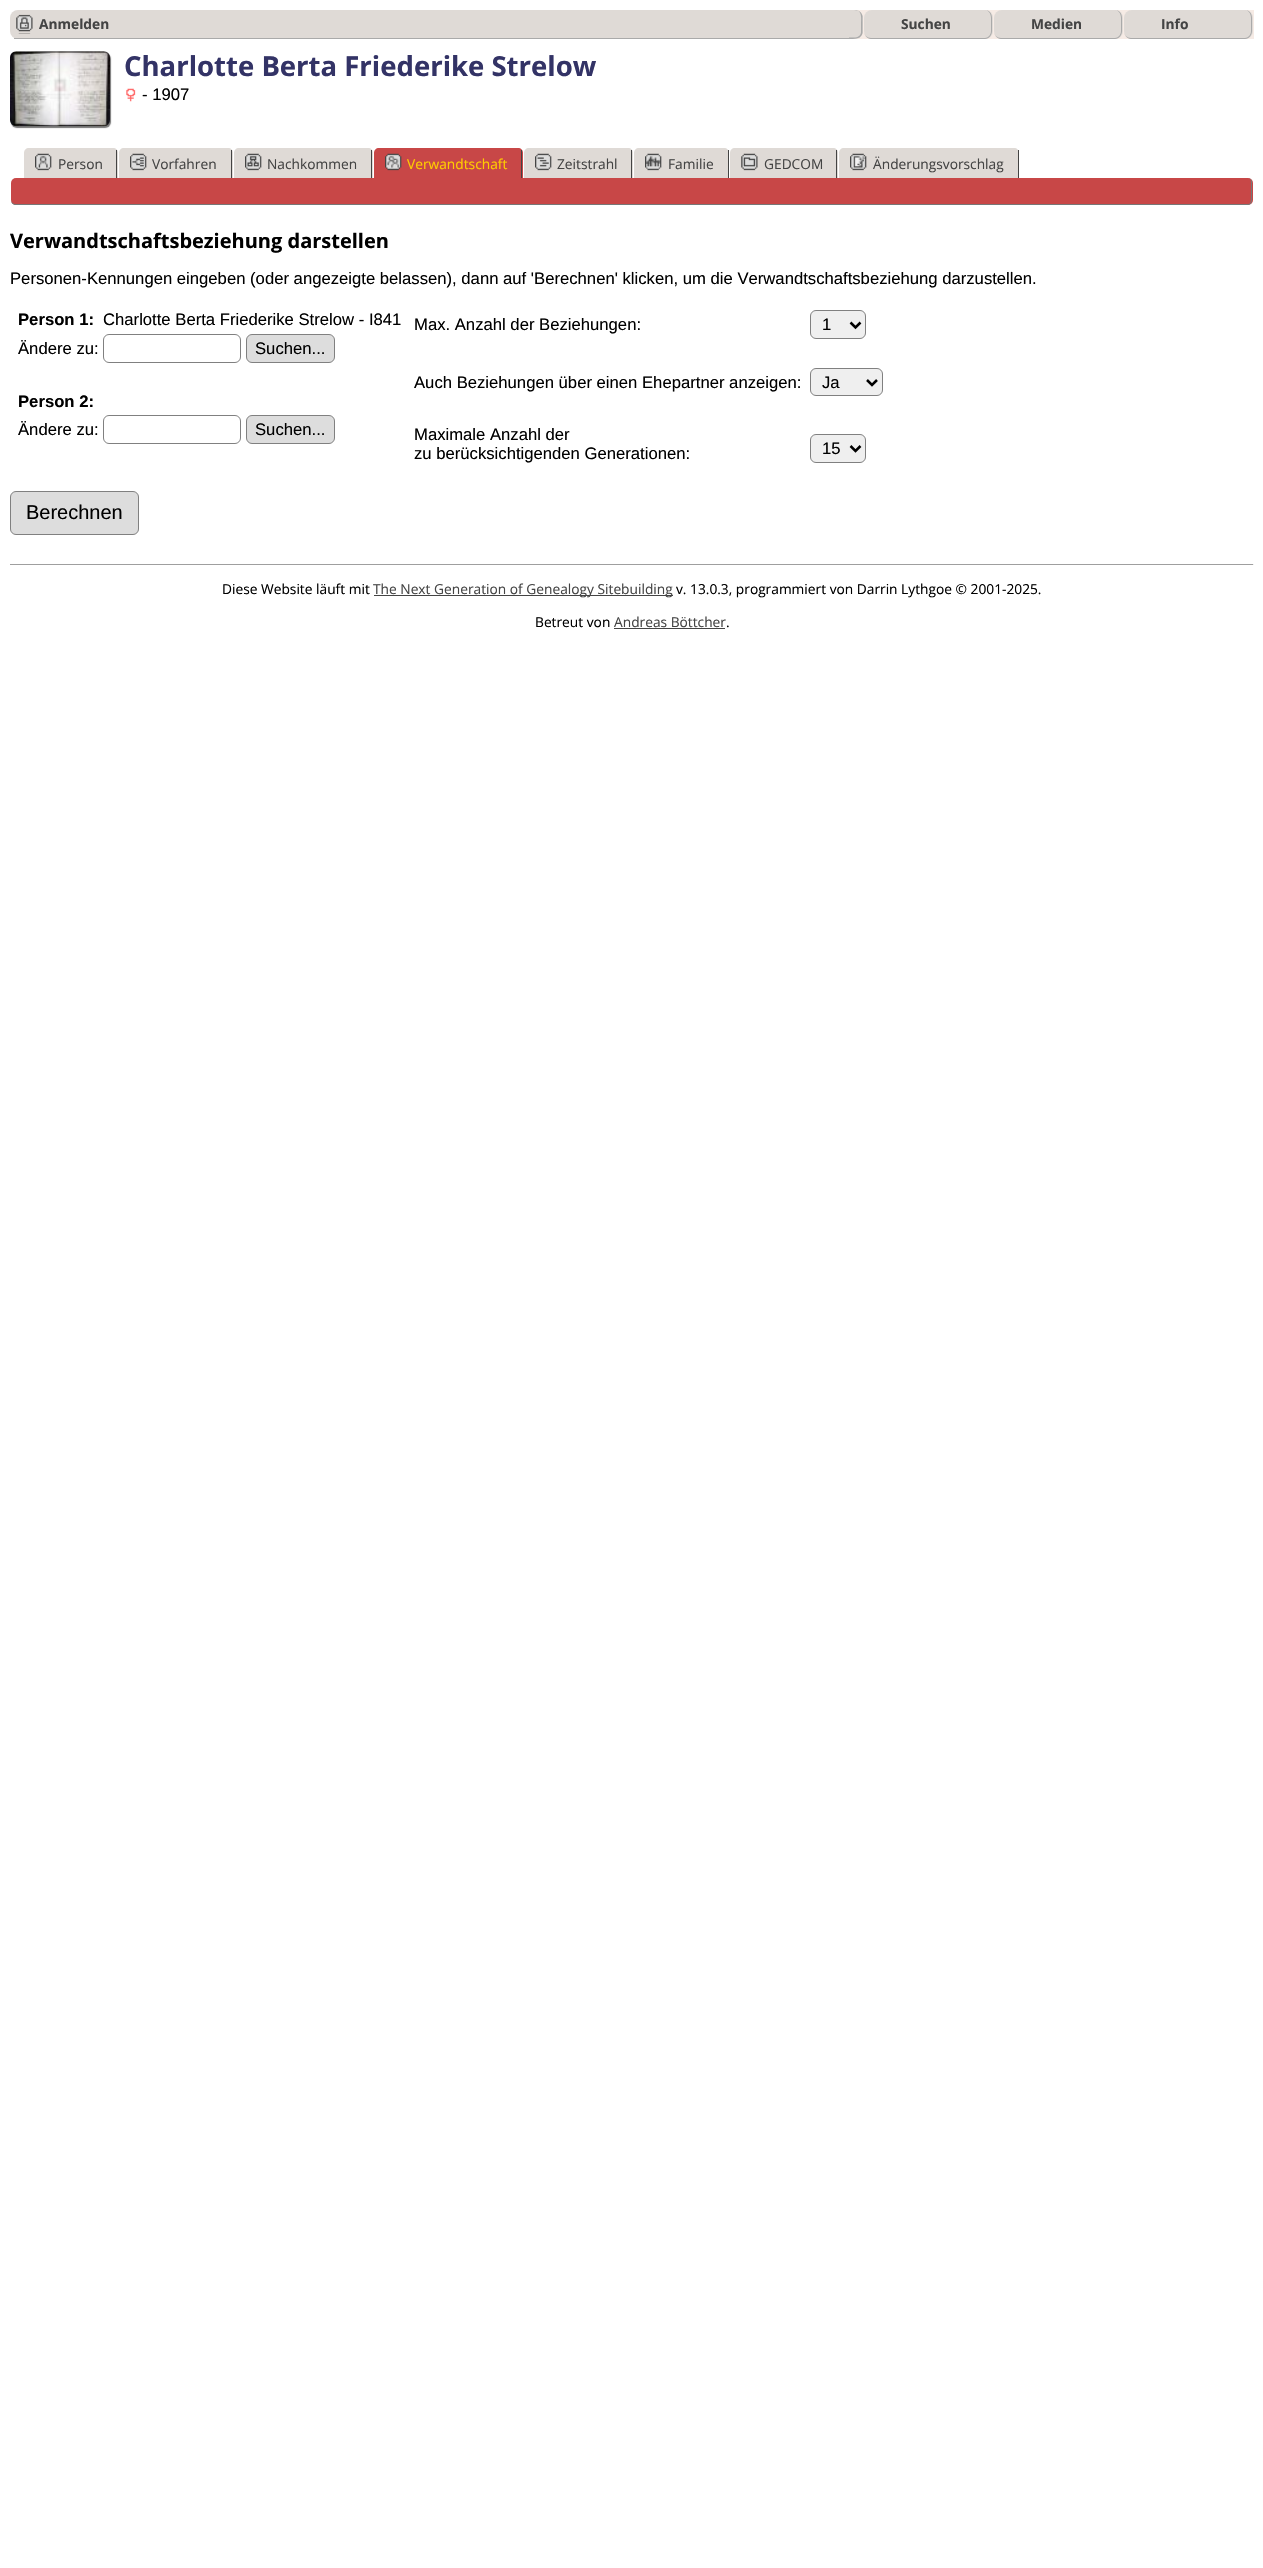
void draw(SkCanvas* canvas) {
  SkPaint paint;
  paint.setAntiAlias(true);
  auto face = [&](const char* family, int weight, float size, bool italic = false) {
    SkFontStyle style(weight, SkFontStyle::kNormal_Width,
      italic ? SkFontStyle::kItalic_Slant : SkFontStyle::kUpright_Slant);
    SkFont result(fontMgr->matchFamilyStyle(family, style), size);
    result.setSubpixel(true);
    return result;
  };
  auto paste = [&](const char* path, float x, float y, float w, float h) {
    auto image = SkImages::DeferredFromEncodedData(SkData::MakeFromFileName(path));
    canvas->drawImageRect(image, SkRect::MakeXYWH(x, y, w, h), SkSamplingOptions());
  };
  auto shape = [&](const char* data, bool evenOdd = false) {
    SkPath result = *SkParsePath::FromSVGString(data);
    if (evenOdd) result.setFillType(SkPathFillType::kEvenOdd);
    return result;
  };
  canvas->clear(0xffffffff);
  paint.setColor(0xffdfdad6);
  canvas->drawRoundRect(SkRect::MakeXYWH(10, 10, 1244, 29), 8, 8, paint);
  paint.setColor(0xffaaaaaa);
  canvas->drawRect(SkRect::MakeXYWH(14, 38, 835, 1), paint);
  paste("img/1.png", 16, 14, 17, 20);
  paint.setColor(0xfff6ebe5);
  canvas->drawRect(SkRect::MakeXYWH(855, 10, 399, 29), paint);
  paint.setColor(0xffdfdad6);
  canvas->drawPath(shape("M849 10H855C859.5 10 863 13.5 863 18V31C863 35.5 859.5 39 855 39H849Z"), paint);
  paint.setColor(0xffaaaaaa);
  canvas->drawPath(shape("M849 10C854 10 861 9 862.5 16V33C861 39.5 854 39 849 39ZM849 10H856.5C862.5 11.5 861 19.5 861 24.5V32.5C860 38.5 853.5 37.5 849 37.5Z", true), paint);
  paint.setColor(0xffdfdad6);
  canvas->drawRoundRect(SkRect::MakeXYWH(864, 10, 129, 29), 8, 8, paint);
  paint.setColor(0xffaaaaaa);
  canvas->drawPath(shape("M871 10H985C989 10 992 13 992 18V31C992 35 989 39 985 39H871C867 39 864 35 864 31V18C864 13 867 10 871 10ZM871 10H985C988 10 991 13 991 18V31C991 35 988 38 985 38H871C867 38 864 35 864 31V18C864 13 867 10 871 10Z", true), paint);
  paint.setColor(0xffdfdad6);
  canvas->drawRoundRect(SkRect::MakeXYWH(994, 10, 129, 29), 8, 8, paint);
  paint.setColor(0xffaaaaaa);
  canvas->drawPath(shape("M1001 10H1115C1119 10 1122 13 1122 18V31C1122 35 1119 39 1115 39H1001C997 39 994 35 994 31V18C994 13 997 10 1001 10ZM1001 10H1115C1118 10 1121 13 1121 18V31C1121 35 1118 38 1115 38H1001C997 38 994 35 994 31V18C994 13 997 10 1001 10Z", true), paint);
  paint.setColor(0xffdfdad6);
  canvas->drawRoundRect(SkRect::MakeXYWH(1124, 10, 129, 29), 8, 8, paint);
  paint.setColor(0xffaaaaaa);
  canvas->drawPath(shape("M1131 10H1245C1249 10 1252 13 1252 18V31C1252 35 1249 39 1245 39H1131C1127 39 1124 35 1124 31V18C1124 13 1127 10 1131 10ZM1131 10H1245C1248 10 1251 13 1251 18V31C1251 35 1248 38 1245 38H1131C1127 38 1124 35 1124 31V18C1124 13 1127 10 1131 10Z", true), paint);
  paint.setColor(0xff777777);
  paint.setMaskFilter(SkMaskFilter::MakeBlur(kNormal_SkBlurStyle, 0.5f));
  canvas->drawRoundRect(SkRect::MakeXYWH(11, 53, 100, 75), 6, 6, paint);
  paint.setMaskFilter(nullptr);
  paste("img/2.png", 10, 51, 100, 76);
  paste("img/3.png", 126, 88, 10, 14);
  paint.setColor(0xffdfdad6);
  canvas->drawPath(shape("M29 148H113C116 148 118 150 118 153V178H24V153C24 150 26 148 29 148Z"), paint);
  paint.setColor(0xff444444);
  canvas->drawRect(SkRect::MakeXYWH(116, 150, 1, 28), paint);
  paste("img/4.png", 35, 153, 17, 18);
  paint.setColor(0xffdfdad6);
  canvas->drawPath(shape("M124 148H228C231 148 233 150 233 153V178H119V153C119 150 121 148 124 148Z"), paint);
  paint.setColor(0xff444444);
  canvas->drawRect(SkRect::MakeXYWH(231, 150, 1, 28), paint);
  paste("img/5.png", 130, 153, 17, 18);
  paint.setColor(0xffdfdad6);
  canvas->drawPath(shape("M239 148H368C371 148 373 150 373 153V178H234V153C234 150 236 148 239 148Z"), paint);
  paint.setColor(0xff444444);
  canvas->drawRect(SkRect::MakeXYWH(371, 150, 1, 28), paint);
  paste("img/6.png", 245, 153, 17, 18);
  paint.setColor(0xffc84747);
  canvas->drawPath(shape("M379 148H518C521 148 523 150 523 153V178H374V153C374 150 376 148 379 148Z"), paint);
  paint.setColor(0xff444444);
  canvas->drawRect(SkRect::MakeXYWH(521, 150, 1, 28), paint);
  paste("img/7.png", 385, 153, 17, 18);
  paint.setColor(0xffdfdad6);
  canvas->drawPath(shape("M529 148H628C631 148 633 150 633 153V178H524V153C524 150 526 148 529 148Z"), paint);
  paint.setColor(0xff444444);
  canvas->drawRect(SkRect::MakeXYWH(631, 150, 1, 28), paint);
  paste("img/8.png", 535, 153, 17, 18);
  paint.setColor(0xffdfdad6);
  canvas->drawPath(shape("M639 148H724C727 148 729 150 729 153V178H634V153C634 150 636 148 639 148Z"), paint);
  paint.setColor(0xff444444);
  canvas->drawRect(SkRect::MakeXYWH(728, 150, 1, 28), paint);
  paste("img/9.png", 645, 153, 17, 18);
  paint.setColor(0xffdfdad6);
  canvas->drawPath(shape("M735 148H833C836 148 838 150 838 153V178H730V153C730 150 732 148 735 148Z"), paint);
  paint.setColor(0xff444444);
  canvas->drawRect(SkRect::MakeXYWH(836, 150, 1, 28), paint);
  paste("img/10.png", 741, 153, 17, 18);
  paint.setColor(0xffdfdad6);
  canvas->drawPath(shape("M844 148H1014C1017 148 1019 150 1019 153V178H839V153C839 150 841 148 844 148Z"), paint);
  paint.setColor(0xff444444);
  canvas->drawRect(SkRect::MakeXYWH(1018, 150, 1, 28), paint);
  paste("img/11.png", 850, 153, 17, 18);
  paint.setColor(0xffc84747);
  canvas->drawRoundRect(SkRect::MakeXYWH(11, 178, 1242, 27), 5, 5, paint);
  paint.setColor(0xff777777);
  canvas->drawPath(shape("M16 178H1248C1250 178 1252 180 1252 182V200C1252 203 1250 205 1248 205H16C13 205 11 203 11 200V182C11 180 13 178 16 178ZM16 178H1248C1250 178 1251 180 1251 182V200C1251 202 1250 204 1248 204H16C13 204 11 202 11 200V182C11 180 13 178 16 178Z", true), paint);
  paint.setStroke(true);
  paint.setStrokeWidth(1);
  paint.setColor(0xff808080);
  canvas->drawRoundRect(SkRect::MakeXYWH(103.5f, 334.5f, 137, 28), 5.5f, 5.5f, paint);
  paint.setStroke(false);
  paint.setColor(0xffdddddd);
  canvas->drawRoundRect(SkRect::MakeXYWH(246.5f, 334.5f, 88, 28), 5.5f, 5.5f, paint);
  paint.setStroke(true);
  paint.setColor(0xff808080);
  canvas->drawRoundRect(SkRect::MakeXYWH(246.5f, 334.5f, 88, 28), 5.5f, 5.5f, paint);
  canvas->drawRoundRect(SkRect::MakeXYWH(103.5f, 415.5f, 137, 28), 5.5f, 5.5f, paint);
  paint.setStroke(false);
  paint.setColor(0xffdddddd);
  canvas->drawRoundRect(SkRect::MakeXYWH(246.5f, 415.5f, 88, 28), 5.5f, 5.5f, paint);
  paint.setStroke(true);
  paint.setColor(0xff808080);
  canvas->drawRoundRect(SkRect::MakeXYWH(246.5f, 415.5f, 88, 28), 5.5f, 5.5f, paint);
  paint.setStroke(false);
  paint.setColor(0xffefefef);
  canvas->drawRoundRect(SkRect::MakeXYWH(810.5f, 310.5f, 55, 28), 5.5f, 5.5f, paint);
  paint.setStroke(true);
  paint.setColor(0xff808080);
  canvas->drawRoundRect(SkRect::MakeXYWH(810.5f, 310.5f, 55, 28), 5.5f, 5.5f, paint);
  paint.setStrokeWidth(2.5f);
  paint.setColor(0xff000000);
  canvas->drawPath(shape("M850.5 322.5L855.5 327.5L860.5 322.5"), paint);
  paint.setStroke(false);
  paint.setColor(0xffefefef);
  canvas->drawRoundRect(SkRect::MakeXYWH(810.5f, 368.5f, 72, 27), 5.5f, 5.5f, paint);
  paint.setStroke(true);
  paint.setStrokeWidth(1);
  paint.setColor(0xff808080);
  canvas->drawRoundRect(SkRect::MakeXYWH(810.5f, 368.5f, 72, 27), 5.5f, 5.5f, paint);
  paint.setStrokeWidth(2.5f);
  paint.setColor(0xff000000);
  canvas->drawPath(shape("M867 380L872 385L877 380"), paint);
  paint.setStroke(false);
  paint.setColor(0xffefefef);
  canvas->drawRoundRect(SkRect::MakeXYWH(810.5f, 434.5f, 55, 28), 5.5f, 5.5f, paint);
  paint.setStroke(true);
  paint.setStrokeWidth(1);
  paint.setColor(0xff808080);
  canvas->drawRoundRect(SkRect::MakeXYWH(810.5f, 434.5f, 55, 28), 5.5f, 5.5f, paint);
  paint.setStrokeWidth(2.5f);
  paint.setColor(0xff000000);
  canvas->drawPath(shape("M850.5 446L855.5 451L860.5 446"), paint);
  paint.setStroke(false);
  paint.setColor(0xffdddddd);
  canvas->drawRoundRect(SkRect::MakeXYWH(10.5f, 491.5f, 128, 43), 5.5f, 5.5f, paint);
  paint.setStroke(true);
  paint.setStrokeWidth(1);
  paint.setColor(0xff808080);
  canvas->drawRoundRect(SkRect::MakeXYWH(10.5f, 491.5f, 128, 43), 5.5f, 5.5f, paint);
  paint.setStroke(false);
  {
    const struct { float x, y, w, h; SkColor color; } items[] = {
      {10, 564, 1244, 1, 0xff9f9f9f},
      {1253, 564, 1, 1, 0xffeeeeee},
      {374, 595, 299, 1, 0xff444444},
      {614, 628, 111, 1, 0xff444444},
    };
    for (auto [x, y, w, h, color] : items) {
      paint.setColor(color);
      canvas->drawRect(SkRect::MakeXYWH(x, y, w, h), paint);
    }
  }
  auto f0 = face("Open Sans", 700, 13.75f);
  {
    const struct { const char* s; float x, y; } items[] = {
      {"Anmelden", 39, 29},
      {"Suchen", 901, 29},
      {"Medien", 1031, 29},
      {"Info", 1161, 29},
    };
    for (auto [s, x, y] : items) {
      canvas->drawString(s, x, y, f0, paint);
    }
  }
  auto f1 = face("Open Sans", 700, 27.5f);
  paint.setColor(0xff333366);
  canvas->drawString("Charlotte Berta Friederike Strelow", 124, 76, f1, paint);
  auto f2 = face("Liberation Sans", 400, 16.67f);
  paint.setColor(0xff000000);
  canvas->drawString("- 1907", 142, 100, f2, paint);
  auto f3 = face("Open Sans", 400, 13.75f);
  paint.setColor(0xff444444);
  {
    const struct { const char* s; float x, y; } items[] = {
      {"Person", 58, 169},
      {"Vorfahren", 152, 169},
      {"Nachkommen", 267, 169},
    };
    for (auto [s, x, y] : items) {
      canvas->drawString(s, x, y, f3, paint);
    }
  }
  paint.setColor(0xffffcc00);
  canvas->drawString("Verwandtschaft", 407, 169, f3, paint);
  paint.setColor(0xff444444);
  {
    const struct { const char* s; float x, y; } items[] = {
      {"Zeitstrahl", 557, 169},
      {"Familie", 668, 169},
      {"GEDCOM", 764, 169},
      {"Änderungsvorschlag", 873, 169},
    };
    for (auto [s, x, y] : items) {
      canvas->drawString(s, x, y, f3, paint);
    }
  }
  auto f4 = face("Open Sans", 700, 20);
  paint.setColor(0xff000000);
  canvas->drawString("Verwandtschaftsbeziehung darstellen", 10, 248, f4, paint);
  canvas->drawString("Personen-Kennungen eingeben (oder angezeigte belassen), dann auf 'Berechnen' klicken, um die Verwandtschaftsbeziehung darzustellen.", 10, 284, f2, paint);
  auto f5 = face("Liberation Sans", 700, 16.67f);
  canvas->drawString("Person 1:", 18, 325, f5, paint);
  {
    const struct { const char* s; float x, y; } items[] = {
      {"Charlotte Berta Friederike Strelow - I841", 103, 325},
      {"Ändere zu:", 18, 354},
      {"Suchen...", 255, 354},
    };
    for (auto [s, x, y] : items) {
      canvas->drawString(s, x, y, f2, paint);
    }
  }
  canvas->drawString("Person 2:", 18, 407, f5, paint);
  {
    const struct { const char* s; float x, y; } items[] = {
      {"Ändere zu:", 18, 435},
      {"Suchen...", 255, 435},
      {"Max. Anzahl der Beziehungen:", 414, 330},
      {"1", 822, 330},
      {"Auch Beziehungen über einen Ehepartner anzeigen:", 414, 388},
      {"Ja", 822, 388},
      {"Maximale Anzahl der", 414, 440},
      {"zu berücksichtigenden Generationen:", 414, 459},
      {"15", 822, 454},
    };
    for (auto [s, x, y] : items) {
      canvas->drawString(s, x, y, f2, paint);
    }
  }
  auto f6 = face("Liberation Sans", 400, 20);
  canvas->drawString("Berechnen", 26, 519, f6, paint);
  canvas->drawString("Diese Website läuft mit", 222, 594, f3, paint);
  paint.setColor(0xff444444);
  canvas->drawString("The Next Generation of Genealogy Sitebuilding", 373, 594, f3, paint);
  paint.setColor(0xff000000);
  canvas->drawString("v. 13.0.3, programmiert von Darrin Lythgoe © 2001-2025.", 676, 594, f3, paint);
  canvas->drawString("Betreut von", 535, 627, f3, paint);
  paint.setColor(0xff444444);
  canvas->drawString("Andreas Böttcher", 614, 627, f3, paint);
  paint.setColor(0xff000000);
  canvas->drawString(".", 726, 627, f3, paint);
}
